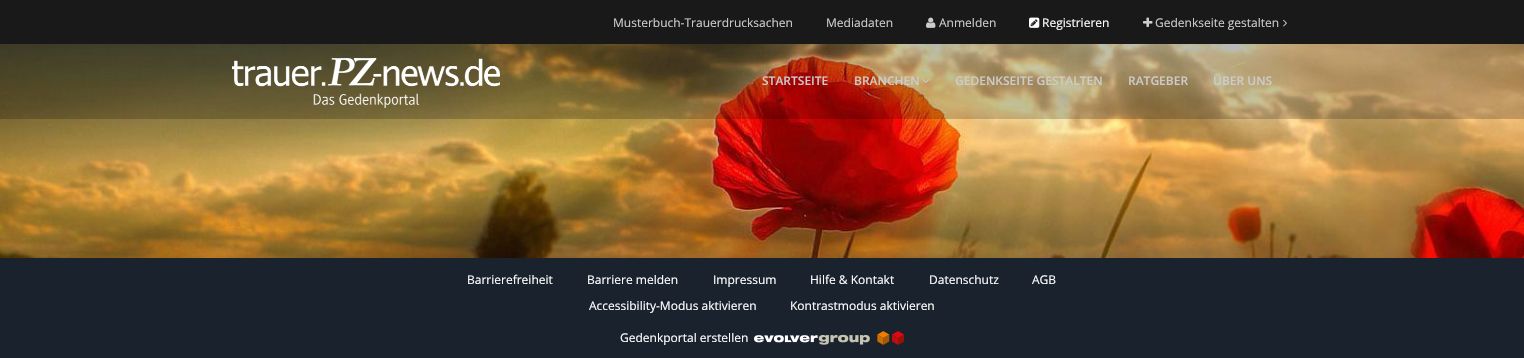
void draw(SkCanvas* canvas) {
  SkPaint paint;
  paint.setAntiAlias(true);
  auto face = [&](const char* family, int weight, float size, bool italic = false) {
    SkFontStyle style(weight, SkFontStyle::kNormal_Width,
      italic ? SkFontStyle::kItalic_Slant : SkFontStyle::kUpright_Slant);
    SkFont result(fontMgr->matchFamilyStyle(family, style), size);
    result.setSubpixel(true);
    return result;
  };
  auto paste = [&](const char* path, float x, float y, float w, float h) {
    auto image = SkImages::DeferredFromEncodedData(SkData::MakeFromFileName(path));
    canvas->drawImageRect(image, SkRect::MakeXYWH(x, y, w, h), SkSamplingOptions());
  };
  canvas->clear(0xffffffff);
  paste("img/7.png", 0, 44, 1524, 214);
  paint.setColor(0x33000000);
  canvas->drawRect(SkRect::MakeXYWH(0, 44, 1524, 75), paint);
  paint.setColor(0xff191919);
  canvas->drawRect(SkRect::MakeXYWH(0, 0, 1524, 44), paint);
  paste("img/1.png", 926, 17, 10, 11);
  paste("img/2.png", 1029, 17, 11, 11);
  paste("img/3.png", 1143, 17, 10, 10);
  paste("img/4.png", 1283, 19, 4, 8);
  paste("img/5.png", 232, 58, 268, 50);
  paste("img/6.png", 922, 79, 8, 4);
  paint.setColor(0xff1a232d);
  canvas->drawRect(SkRect::MakeXYWH(0, 258, 1524, 100), paint);
  paste("img/8.png", 754, 331, 150, 14);
  auto f0 = face("Open Sans", 400, 12);
  paint.setColor(0xffcccccc);
  {
    const struct { const char* s; float x, y; } items[] = {
      {"Musterbuch-Trauerdrucksachen", 613, 27},
      {"Mediadaten", 826, 27},
      {"Anmelden", 939, 27},
    };
    for (auto [s, x, y] : items) {
      canvas->drawString(s, x, y, f0, paint);
    }
  }
  paint.setColor(0xffffffff);
  canvas->drawString("Registrieren", 1042, 27, f0, paint);
  paint.setColor(0xffcccccc);
  canvas->drawString("Gedenkseite gestalten", 1155, 27, f0, paint);
  auto f1 = face("Open Sans", 600, 12);
  {
    const struct { const char* s; float x, y; } items[] = {
      {"STARTSEITE", 762, 85},
      {"BRANCHEN", 854, 85},
      {"GEDENKSEITE GESTALTEN", 955, 85},
      {"RATGEBER", 1128, 85},
      {"ÜBER UNS", 1213, 85},
    };
    for (auto [s, x, y] : items) {
      canvas->drawString(s, x, y, f1, paint);
    }
  }
  paint.setColor(0xffffffff);
  {
    const struct { const char* s; float x, y; } items[] = {
      {"Barrierefreiheit", 467, 284},
      {"Barriere melden", 587, 284},
      {"Impressum", 713, 284},
      {"Hilfe & Kontakt", 810, 284},
      {"Datenschutz", 929, 284},
      {"AGB", 1032, 284},
      {"Accessibility-Modus aktivieren", 589, 310},
      {"Kontrastmodus aktivieren", 790, 310},
      {"Gedenkportal erstellen", 620, 342},
    };
    for (auto [s, x, y] : items) {
      canvas->drawString(s, x, y, f0, paint);
    }
  }
}
